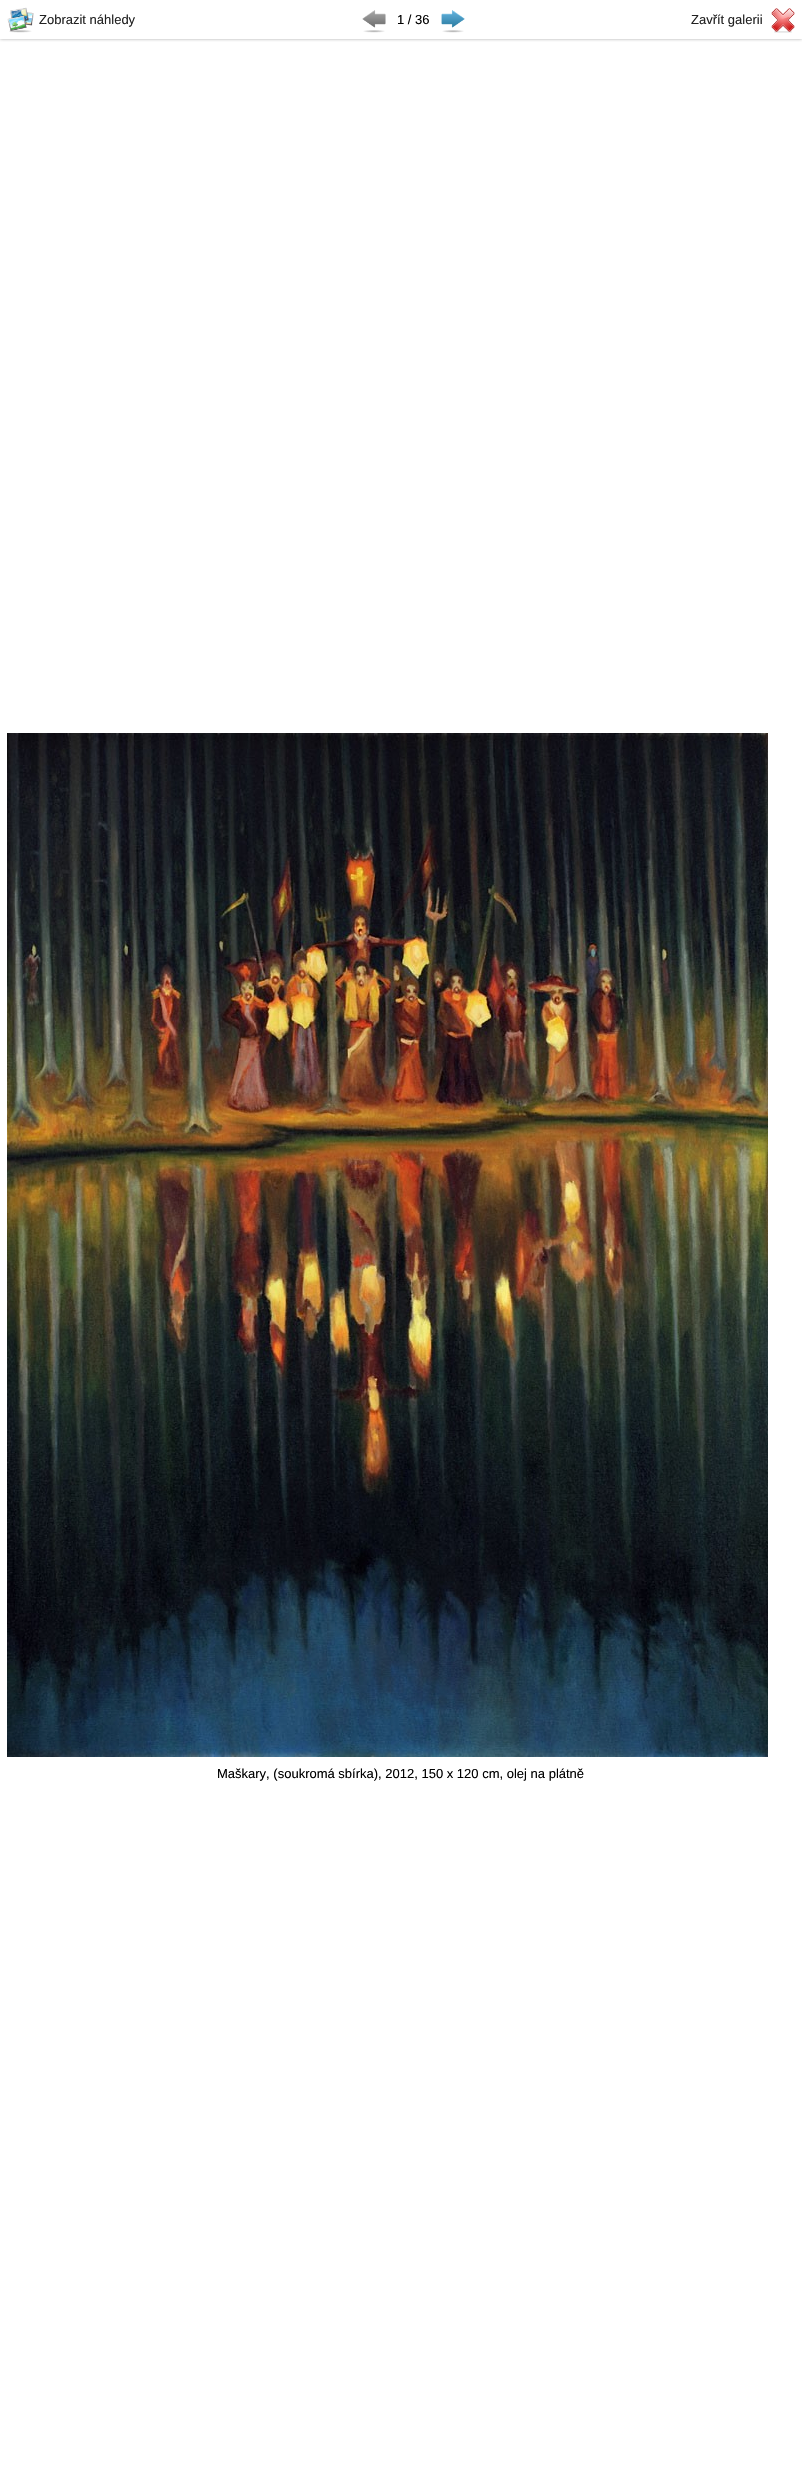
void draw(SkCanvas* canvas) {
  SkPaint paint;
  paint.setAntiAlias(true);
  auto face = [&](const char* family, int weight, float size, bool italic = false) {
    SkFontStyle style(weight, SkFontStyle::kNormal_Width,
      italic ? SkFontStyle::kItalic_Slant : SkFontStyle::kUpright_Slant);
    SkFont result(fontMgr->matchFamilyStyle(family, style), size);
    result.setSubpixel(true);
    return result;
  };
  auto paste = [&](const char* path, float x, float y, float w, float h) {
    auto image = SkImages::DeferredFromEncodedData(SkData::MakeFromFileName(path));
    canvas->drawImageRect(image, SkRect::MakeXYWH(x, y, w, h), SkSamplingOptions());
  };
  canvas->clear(0xffffffff);
  canvas->save();
  canvas->clipRect(SkRect::MakeXYWH(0, 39, 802, 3));
  paint.setColor(0xffaaaaaa);
  paint.setMaskFilter(SkMaskFilter::MakeBlur(kNormal_SkBlurStyle, 1.5f));
  canvas->drawRect(SkRect::MakeXYWH(0, 0, 802, 39), paint);
  paint.setMaskFilter(nullptr);
  canvas->restore();
  paste("img/1.png", 7, 7, 27, 26);
  paste("img/2.png", 362, 10, 24, 23);
  paste("img/3.png", 441, 10, 24, 23);
  paste("img/4.png", 771, 8, 24, 25);
  paste("img/5.png", 7, 733, 761, 1024);
  auto f0 = face("Liberation Sans", 400, 13);
  paint.setColor(0xff222222);
  canvas->drawString("Zobrazit náhledy", 39, 24, f0, paint);
  paint.setColor(0xff000000);
  canvas->drawString("1 / 36", 397, 24, f0, paint);
  paint.setColor(0xff222222);
  canvas->drawString("Zavřít galerii", 691, 24, f0, paint);
  paint.setColor(0xff000000);
  canvas->drawString("Maškary, (soukromá sbírka), 2012, 150 x 120 cm, olej na plátně", 217, 1778, f0, paint);
}
